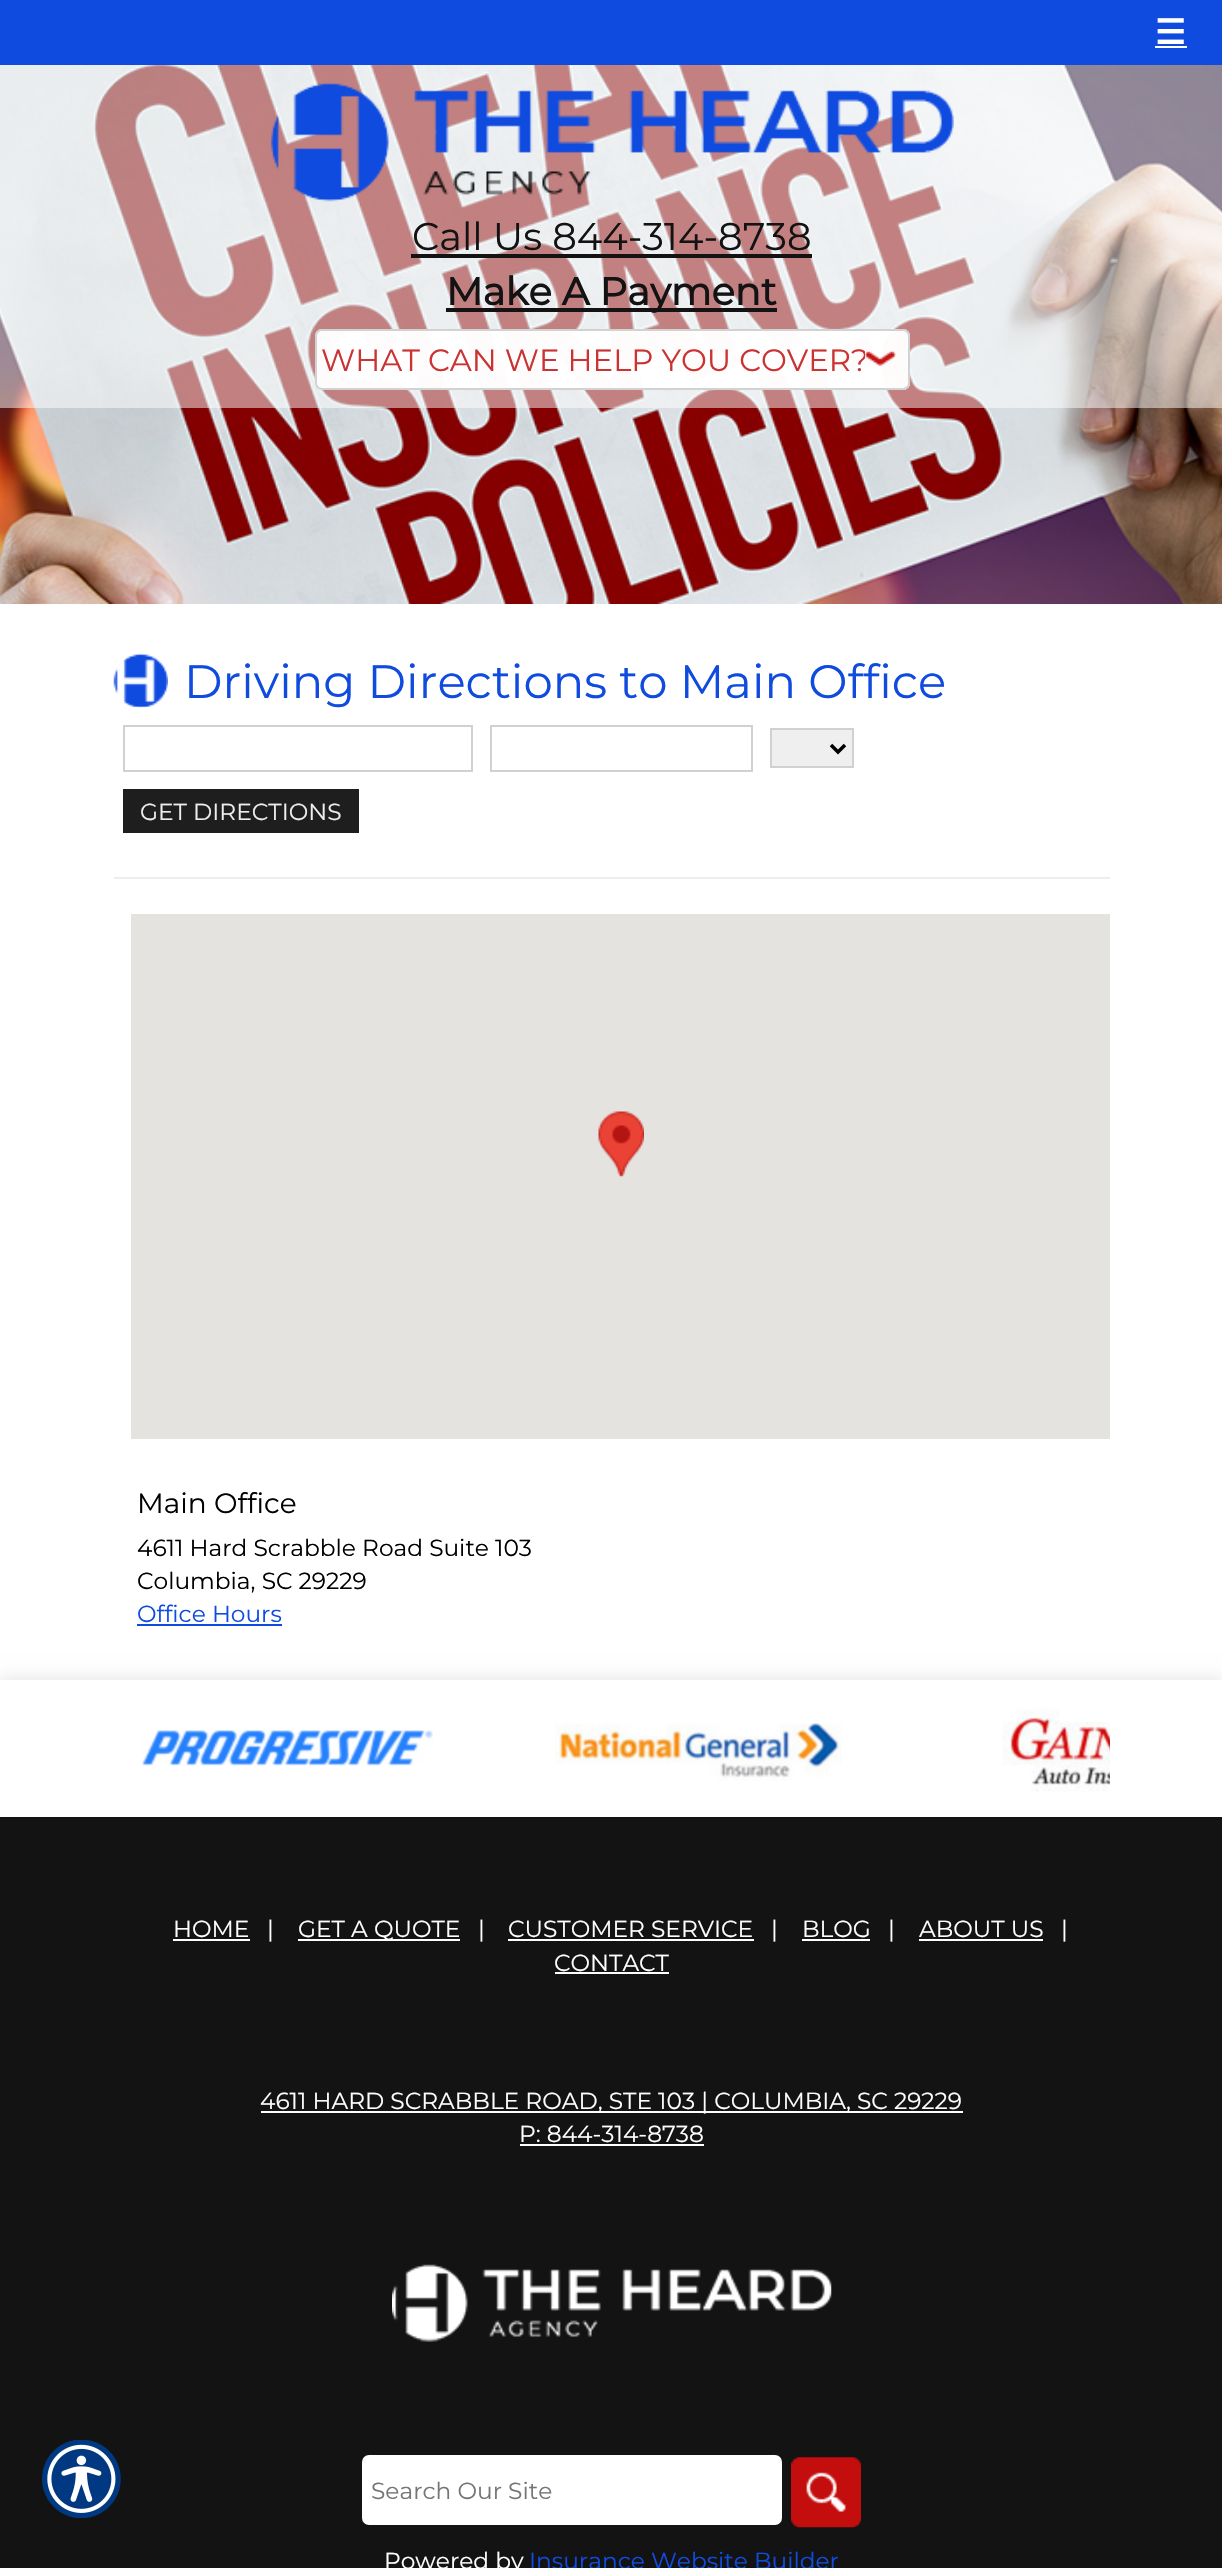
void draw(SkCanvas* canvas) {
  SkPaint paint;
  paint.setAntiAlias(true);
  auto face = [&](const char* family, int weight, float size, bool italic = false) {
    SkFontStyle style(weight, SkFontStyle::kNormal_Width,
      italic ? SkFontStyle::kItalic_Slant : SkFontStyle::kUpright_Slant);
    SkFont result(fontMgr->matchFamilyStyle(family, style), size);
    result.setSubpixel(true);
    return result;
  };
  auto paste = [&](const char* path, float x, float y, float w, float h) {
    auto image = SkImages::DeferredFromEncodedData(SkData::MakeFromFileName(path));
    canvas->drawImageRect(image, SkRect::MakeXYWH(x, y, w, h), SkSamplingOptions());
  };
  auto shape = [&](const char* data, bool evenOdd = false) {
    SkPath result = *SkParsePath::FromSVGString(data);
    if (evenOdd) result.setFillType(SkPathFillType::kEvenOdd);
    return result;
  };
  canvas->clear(0xffffffff);
  paint.setColor(0x1f000000);
  paint.setMaskFilter(SkMaskFilter::MakeBlur(kNormal_SkBlurStyle, 9));
  canvas->drawRect(SkRect::MakeXYWH(0, 1680, 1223, 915), paint);
  paint.setMaskFilter(nullptr);
  paint.setColor(0xff131313);
  canvas->drawRect(SkRect::MakeXYWH(0, 1817, 1222, 751), paint);
  paste("img/1.png", 42, 2440, 79, 78);
  paste("img/4.png", 0, 65, 1222, 539);
  {
    const struct { float x, y, w, h; SkColor color; } items[] = {
      {0, 65, 1222, 343, 0x80ffffff},
      {0, 0, 1222, 65, 0xff104be0},
      {1155, 46, 32, 2, 0xffffffff},
    };
    for (auto [x, y, w, h, color] : items) {
      paint.setColor(color);
      canvas->drawRect(SkRect::MakeXYWH(x, y, w, h), paint);
    }
  }
  paste("img/2.png", 270, 82, 684, 120);
  paint.setColor(0xff131313);
  canvas->drawRect(SkRect::MakeXYWH(411, 254, 401, 4), paint);
  canvas->drawRect(SkRect::MakeXYWH(446, 308, 331, 4), paint);
  paint.setColor(0xf7ffffff);
  canvas->drawRoundRect(SkRect::MakeXYWH(315, 329, 595, 61), 7, 7, paint);
  paste("img/3.png", 864, 351, 32, 15);
  paint.setStroke(true);
  paint.setStrokeWidth(2);
  paint.setColor(0xf7d1d1d1);
  canvas->drawRoundRect(SkRect::MakeXYWH(316, 330, 593, 59), 6, 6, paint);
  paste("img/5.png", 113, 653, 55, 55);
  paint.setColor(0xffd1d1d1);
  canvas->drawRect(SkRect::MakeXYWH(124, 726, 348, 45), paint);
  canvas->drawRect(SkRect::MakeXYWH(491, 726, 261, 45), paint);
  paint.setStroke(false);
  paint.setColor(0xffefefef);
  canvas->drawRect(SkRect::MakeXYWH(771, 729, 82, 38), paint);
  paint.setStroke(true);
  paint.setColor(0xffd1d1d1);
  canvas->drawRect(SkRect::MakeXYWH(771, 729, 82, 38), paint);
  paint.setStrokeWidth(3.5f);
  paint.setColor(0xff000000);
  canvas->drawPath(shape("M831 745L838 752L845 745"), paint);
  paint.setStroke(false);
  {
    const struct { float x, y, w, h; SkColor color; } items[] = {
      {123, 789, 236, 44, 0xff1e1e1e},
      {114, 877, 996, 2, 0xffeeeeee},
      {131, 914, 979, 525, 0xffe5e3df},
    };
    for (auto [x, y, w, h, color] : items) {
      paint.setColor(color);
      canvas->drawRect(SkRect::MakeXYWH(x, y, w, h), paint);
    }
  }
  paste("img/6.png", 598, 1111, 46, 66);
  paint.setColor(0xff104be0);
  canvas->drawRect(SkRect::MakeXYWH(137, 1624, 145, 2), paint);
  paint.setColor(0xffffffff);
  canvas->drawRect(SkRect::MakeXYWH(0, 1680, 1222, 137), paint);
  paste("img/7.png", 141, 1730, 292, 36);
  paste("img/8.png", 555, 1723, 287, 58);
  paste("img/9.png", 1002, 1708, 108, 84);
  {
    const struct { float x, y, w, h; SkColor color; } items[] = {
      {173, 1939, 77, 2, 0xffffffff},
      {298, 1939, 162, 2, 0xffffffff},
      {508, 1939, 246, 2, 0xffffffff},
      {802, 1939, 68, 2, 0xffffffff},
      {919, 1939, 124, 2, 0xffffffff},
      {555, 1972, 114, 2, 0xffffffff},
      {261, 2111, 702, 2, 0xffffffff},
      {520, 2144, 184, 2, 0xffffffff},
    };
    for (auto [x, y, w, h, color] : items) {
      paint.setColor(color);
      canvas->drawRect(SkRect::MakeXYWH(x, y, w, h), paint);
    }
  }
  paste("img/10.png", 392, 2264, 440, 78);
  canvas->drawRoundRect(SkRect::MakeXYWH(362, 2455, 420, 70), 7, 7, paint);
  paste("img/11.png", 790, 2457, 72, 71);
  auto f0 = face("DejaVu Sans", 700, 34);
  canvas->drawString("☰", 1155, 44, f0, paint);
  auto f1 = face("Montserrat", 100, 38.5f);
  paint.setColor(0xff131313);
  canvas->drawString("Call Us 844-314-8738", 412, 250, f1, paint);
  auto f2 = face("Montserrat", 700, 38.5f);
  canvas->drawString("Make A Payment", 446, 305, f2, paint);
  canvas->save();
  canvas->clipRect(SkRect::MakeXYWH(322, 338, 543, 44));
  auto f3 = face("Montserrat", 100, 30.75f);
  paint.setColor(0xffcb3231);
  canvas->drawString("WHAT CAN WE HELP YOU COVER?", 321, 371, f3, paint);
  canvas->restore();
  auto f4 = face("Montserrat", 100, 46.7f);
  paint.setColor(0xff104be0);
  canvas->drawString("Driving Directions to Main Office", 184, 698, f4, paint);
  auto f5 = face("Montserrat", 100, 23.3f);
  paint.setColor(0xffededed);
  canvas->drawString("GET DIRECTIONS", 140, 820, f5, paint);
  auto f6 = face("Montserrat", 100, 28);
  paint.setColor(0xff000000);
  canvas->drawString("Main Office", 137, 1513, f6, paint);
  canvas->drawString("4611 Hard Scrabble Road Suite 103", 137, 1556, f5, paint);
  canvas->drawString("Columbia, SC 29229", 137, 1589, f5, paint);
  paint.setColor(0xff104be0);
  canvas->drawString("Office Hours", 137, 1622, f5, paint);
  paint.setColor(0xffffffff);
  {
    const struct { const char* s; float x, y; } items[] = {
      {"HOME", 173, 1937},
      {"|", 267, 1937},
      {"GET A QUOTE", 298, 1937},
      {"|", 478, 1937},
      {"CUSTOMER SERVICE", 508, 1937},
      {"|", 771, 1937},
      {"BLOG", 802, 1937},
      {"|", 888, 1937},
      {"ABOUT US", 919, 1937},
      {"|", 1061, 1937},
      {"CONTACT", 554, 1971},
      {"4611 HARD SCRABBLE ROAD, STE 103 | COLUMBIA, SC 29229", 260, 2109},
      {"P: 844-314-8738", 519, 2142},
    };
    for (auto [s, x, y] : items) {
      canvas->drawString(s, x, y, f5, paint);
    }
  }
  paint.setColor(0xff757575);
  canvas->drawString("Search Our Site", 371, 2499, f5, paint);
  paint.setColor(0xffffffff);
  canvas->drawString("Powered by", 384, 2569, f5, paint);
  paint.setColor(0xff104be0);
  canvas->drawString("Insurance Website Builder", 529, 2569, f5, paint);
}
